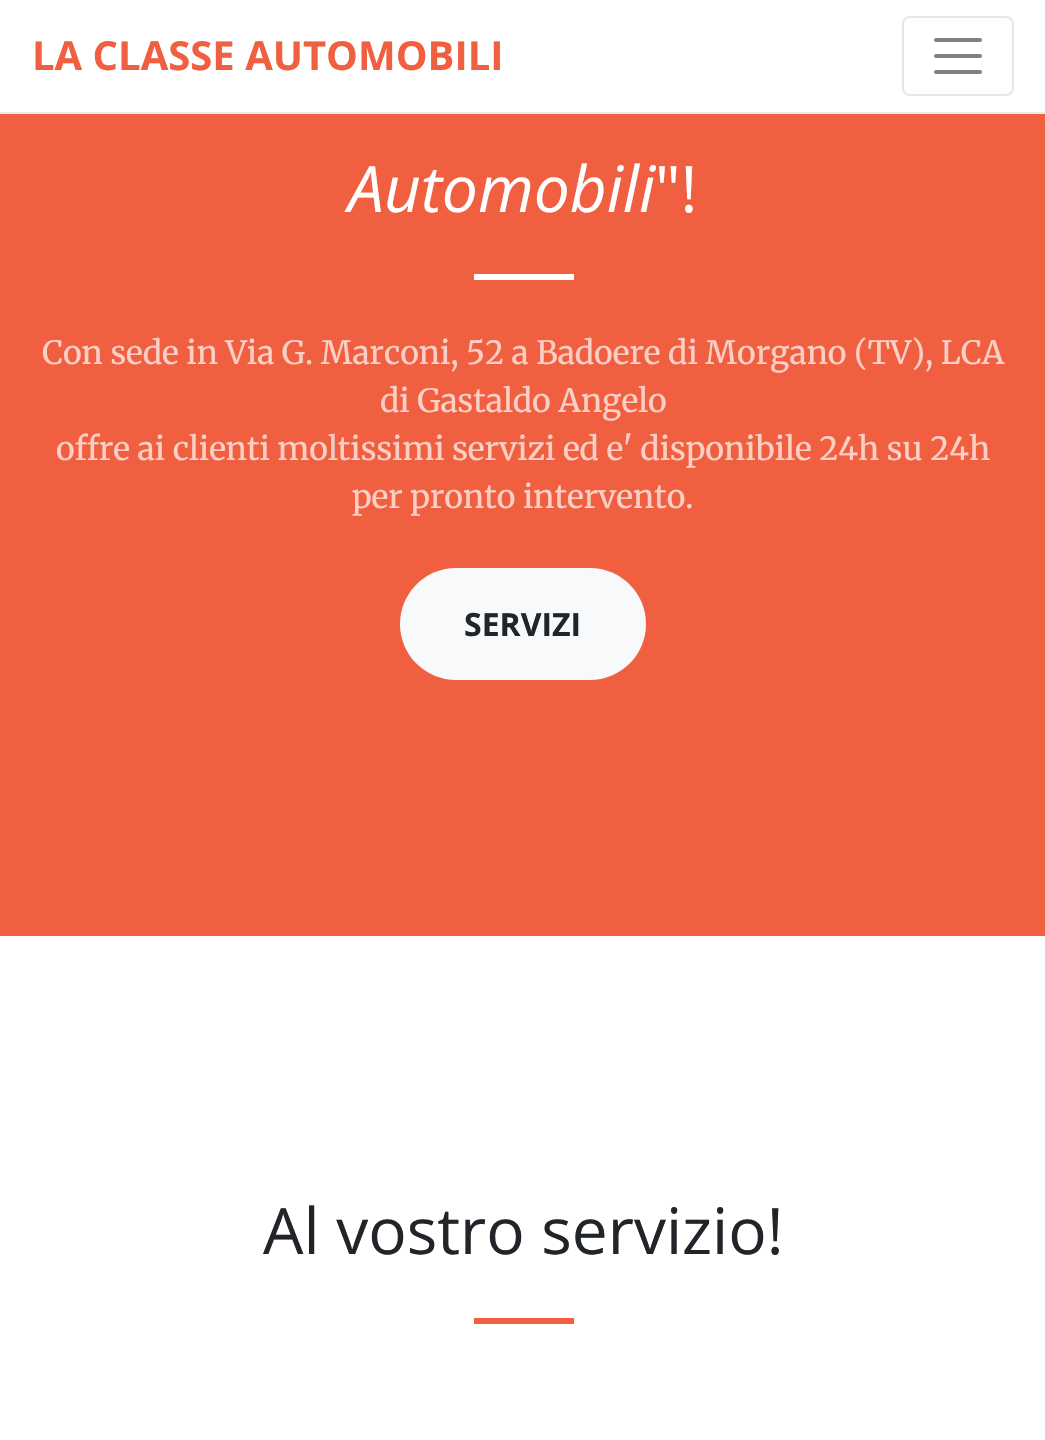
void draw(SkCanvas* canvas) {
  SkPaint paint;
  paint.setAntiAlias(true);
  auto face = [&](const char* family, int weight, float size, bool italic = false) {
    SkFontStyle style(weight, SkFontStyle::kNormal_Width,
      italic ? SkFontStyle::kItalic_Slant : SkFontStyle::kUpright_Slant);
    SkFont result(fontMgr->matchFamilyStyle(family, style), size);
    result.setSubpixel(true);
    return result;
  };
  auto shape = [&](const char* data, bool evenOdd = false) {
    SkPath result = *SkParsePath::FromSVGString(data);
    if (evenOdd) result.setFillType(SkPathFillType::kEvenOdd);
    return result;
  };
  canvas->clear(0xffffffff);
  paint.setColor(0xffe9e9ea);
  canvas->drawRect(SkRect::MakeXYWH(0, 112, 1045, 2), paint);
  paint.setStroke(true);
  paint.setStrokeWidth(2);
  paint.setColor(0xffe6e6e6);
  canvas->drawRoundRect(SkRect::MakeXYWH(903, 17, 110, 78), 7, 7, paint);
  paint.setStrokeWidth(4);
  paint.setStrokeCap(SkPaint::kRound_Cap);
  paint.setColor(0xff808080);
  canvas->drawPath(shape("M936 40H980M936 56H980M936 72H980"), paint);
  paint.setStroke(false);
  paint.setColor(0xfff05f40);
  canvas->drawRect(SkRect::MakeXYWH(0, 114, 1045, 822), paint);
  paint.setColor(0xffffffff);
  canvas->drawRect(SkRect::MakeXYWH(474, 274, 100, 6), paint);
  paint.setColor(0xfff8f9fa);
  canvas->drawRoundRect(SkRect::MakeXYWH(400, 568, 246, 112), 56, 56, paint);
  paint.setColor(0xfff05f40);
  canvas->drawRect(SkRect::MakeXYWH(474, 1318, 100, 6), paint);
  auto f0 = face("Open Sans", 700, 40);
  canvas->drawString("LA CLASSE AUTOMOBILI", 32, 70, f0, paint);
  auto f1 = face("Open Sans", 400, 64, true);
  paint.setColor(0xffffffff);
  canvas->drawString("Automobili", 348, 212, f1, paint);
  auto f2 = face("Open Sans", 400, 64);
  canvas->drawString("\"!", 655, 212, f2, paint);
  auto f3 = face("Merriweather", 400, 32);
  paint.setColor(0xfffbcfc6);
  {
    const struct { const char* s; float x, y; } items[] = {
      {"Con sede in Via G. Marconi, 52 a Badoere di Morgano (TV), LCA", 42, 364},
      {"di Gastaldo Angelo", 380, 412},
      {"offre ai clienti moltissimi servizi ed e' disponibile 24h su 24h", 56, 460},
      {"per pronto intervento.", 352, 508},
    };
    for (auto [s, x, y] : items) {
      canvas->drawString(s, x, y, f3, paint);
    }
  }
  auto f4 = face("Open Sans", 700, 32);
  paint.setColor(0xff212529);
  canvas->drawString("SERVIZI", 464, 636, f4, paint);
  canvas->drawString("Al vostro servizio!", 263, 1254, f2, paint);
}
